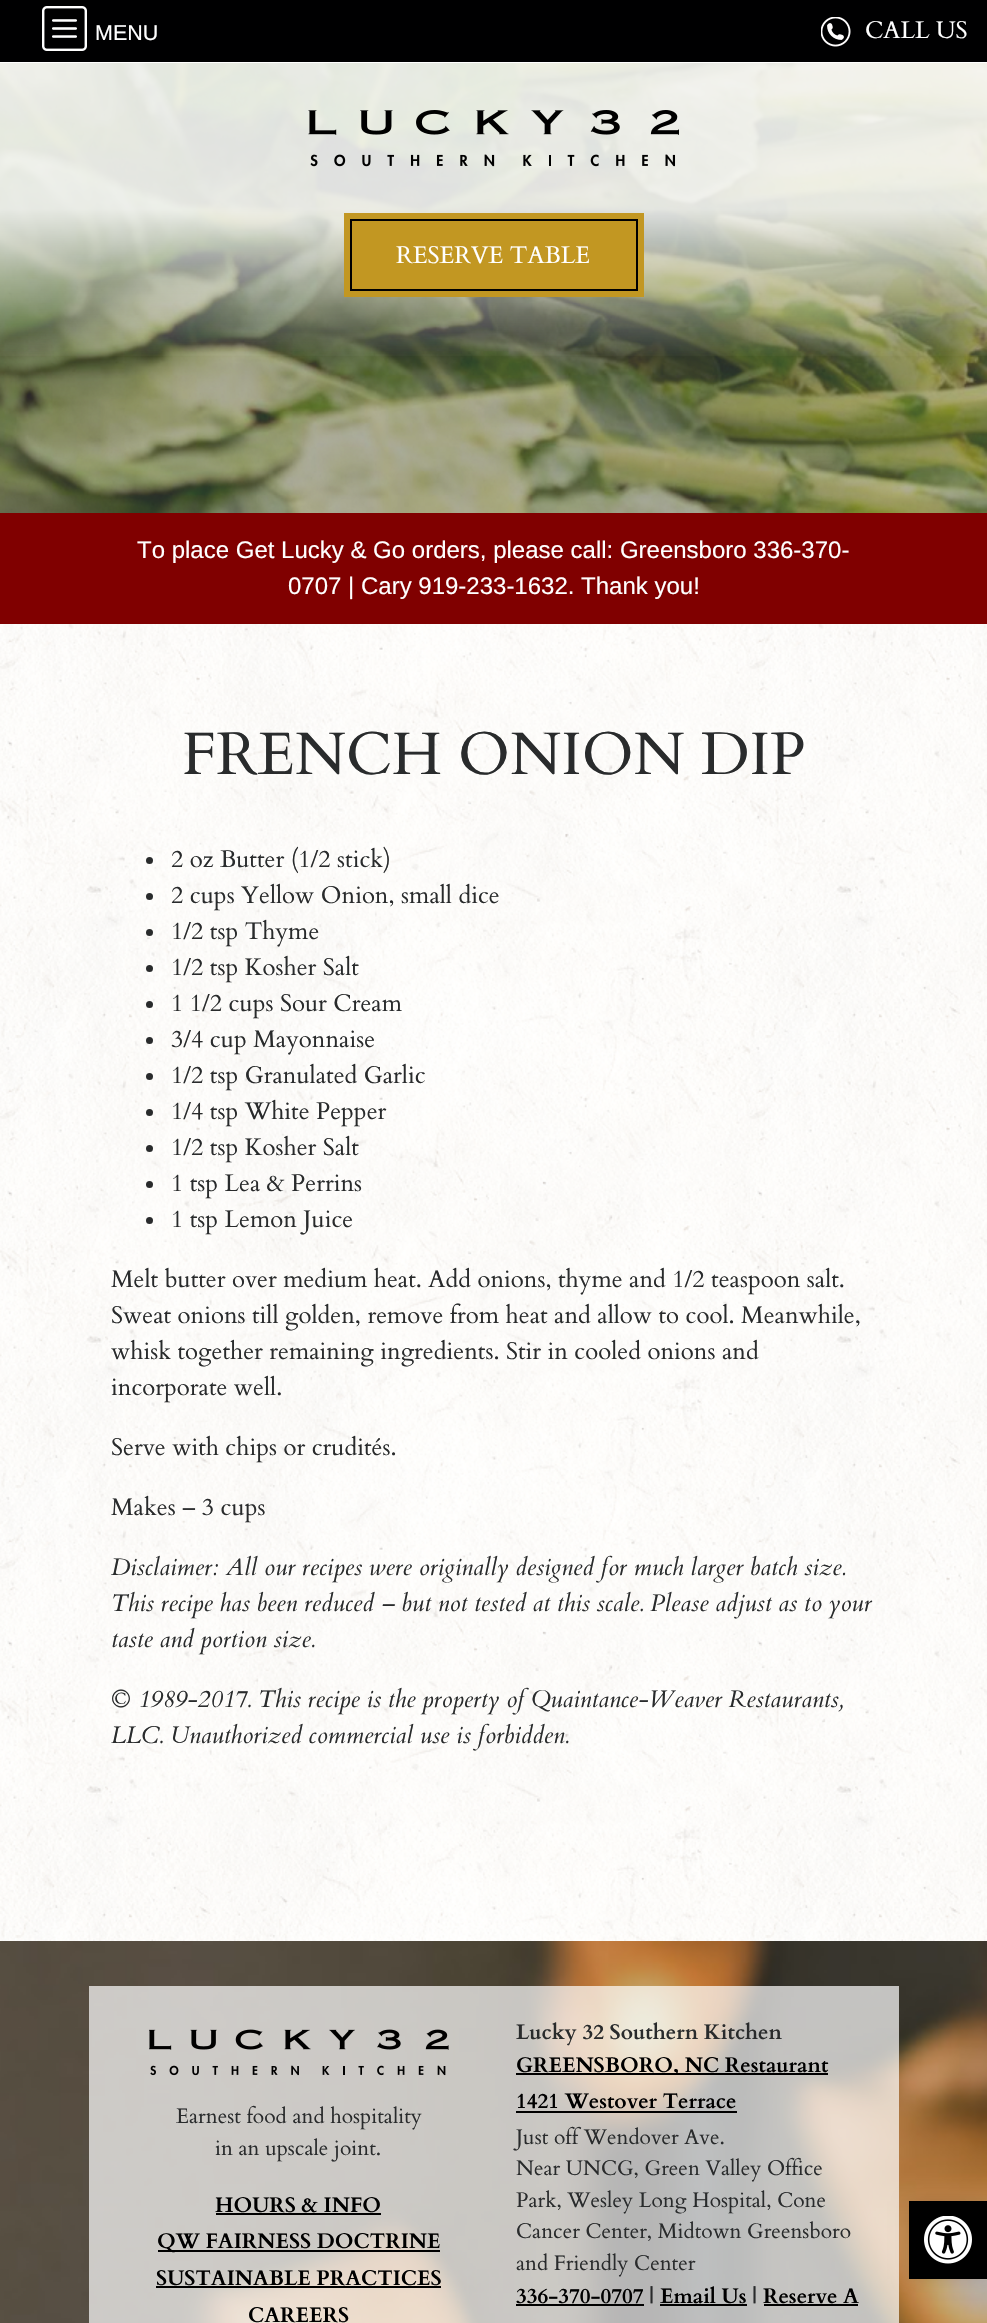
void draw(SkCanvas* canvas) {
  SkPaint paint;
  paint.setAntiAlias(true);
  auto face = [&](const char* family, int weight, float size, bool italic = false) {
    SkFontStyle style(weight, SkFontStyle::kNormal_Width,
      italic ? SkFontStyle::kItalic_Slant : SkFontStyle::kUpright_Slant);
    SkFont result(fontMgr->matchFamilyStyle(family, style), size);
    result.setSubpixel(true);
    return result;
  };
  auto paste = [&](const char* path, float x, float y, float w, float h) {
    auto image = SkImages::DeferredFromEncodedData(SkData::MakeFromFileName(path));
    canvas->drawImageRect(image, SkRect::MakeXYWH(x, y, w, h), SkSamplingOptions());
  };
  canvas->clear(0xffffffff);
  paste("img/1.png", 0, 62, 987, 1879);
  paint.setColor(0xff000001);
  canvas->drawRect(SkRect::MakeXYWH(0, 0, 987, 62), paint);
  paste("img/2.png", 42, 6, 45, 45);
  paste("img/3.png", 821, 17, 30, 30);
  paint.setColor(0x99000000);
  canvas->drawRect(SkRect::MakeXYWH(0, 63, 987, 450), paint);
  paste("img/4.png", 0, 63, 987, 450);
  {
    const SkColor colors[] = {0xd9ffffff, 0x00ffffff};
    const float stops[] = {0.58f, 1};
    const SkPoint ends[] = {{494, 0}, {494, 360}};
    paint.setShader(SkGradientShader::MakeLinear(ends, colors, stops, 2, SkTileMode::kClamp));
    paint.setAlpha(255);
  }
  canvas->drawRect(SkRect::MakeXYWH(0, 62, 987, 294), paint);
  paste("img/5.png", 308, 110, 371, 57);
  paint.setShader(nullptr);
  paint.setColor(0xffc29722);
  canvas->drawRect(SkRect::MakeXYWH(344, 213, 300, 84), paint);
  paint.setStroke(true);
  paint.setStrokeWidth(2);
  paint.setColor(0xff000001);
  canvas->drawRect(SkRect::MakeXYWH(351, 220, 286, 70), paint);
  paint.setStroke(false);
  paint.setColor(0xff800000);
  canvas->drawRect(SkRect::MakeXYWH(0, 513, 987, 111), paint);
  paint.setColor(0xff292b2c);
  canvas->drawCircle(149.5f, 860.5f, 3.5f, paint);
  canvas->drawCircle(149.5f, 896.5f, 3.5f, paint);
  canvas->drawCircle(149.5f, 932.5f, 3.5f, paint);
  canvas->drawCircle(149.5f, 968.5f, 3.5f, paint);
  canvas->drawCircle(149.5f, 1004.5f, 3.5f, paint);
  canvas->drawCircle(149.5f, 1040.5f, 3.5f, paint);
  canvas->drawCircle(149.5f, 1076.5f, 3.5f, paint);
  canvas->drawCircle(149.5f, 1112.5f, 3.5f, paint);
  canvas->drawCircle(149.5f, 1148.5f, 3.5f, paint);
  canvas->drawCircle(149.5f, 1184.5f, 3.5f, paint);
  canvas->drawCircle(149.5f, 1220.5f, 3.5f, paint);
  paste("img/6.png", 0, 1941, 987, 382);
  paint.setColor(0xb3ffffff);
  canvas->drawRect(SkRect::MakeXYWH(89, 1986, 810, 337), paint);
  paste("img/7.png", 149, 2029, 300, 47);
  {
    const struct { float x, y, w, h; SkColor color; } items[] = {
      {216, 2213, 165, 2, 0xff000000},
      {158, 2250, 282, 2, 0xff000000},
      {156, 2286, 285, 2, 0xff000000},
      {516, 2073, 312, 2, 0xff000000},
      {516, 2111, 221, 2, 0xff000000},
      {516, 2304, 128, 2, 0xff000000},
      {660, 2304, 87, 2, 0xff000000},
      {764, 2304, 94, 2, 0xff000000},
    };
    for (auto [x, y, w, h, color] : items) {
      paint.setColor(color);
      canvas->drawRect(SkRect::MakeXYWH(x, y, w, h), paint);
    }
  }
  paint.setColor(0x1a000000);
  paint.setMaskFilter(SkMaskFilter::MakeBlur(kNormal_SkBlurStyle, 7.5f));
  canvas->drawRect(SkRect::MakeXYWH(909, 2201, 78, 78), paint);
  paint.setMaskFilter(nullptr);
  paint.setColor(0xff000000);
  canvas->drawRect(SkRect::MakeXYWH(909, 2201, 78, 78), paint);
  paste("img/8.png", 924, 2216, 48, 48);
  auto f0 = face("Liberation Sans", 400, 21.5f);
  paint.setColor(0xffffffff);
  canvas->drawString("MENU", 95, 40, f0, paint);
  auto f1 = face("Cardo", 400, 24);
  canvas->drawString("CALL US", 865, 38, f1, paint);
  canvas->drawString("RESERVE TABLE", 396, 263, f1, paint);
  auto f2 = face("Liberation Sans", 400, 24);
  canvas->drawString("To place Get Lucky & Go orders, please call: Greensboro 336-370-", 137, 558, f2, paint);
  canvas->drawString("0707 | Cary 919-233-1632. Thank you!", 288, 594, f2, paint);
  auto f3 = face("Cardo", 400, 60);
  paint.setColor(0xff292b2c);
  canvas->drawString("FRENCH ONION DIP", 182, 774, f3, paint);
  {
    const struct { const char* s; float x, y; } items[] = {
      {"2 oz Butter (1/2 stick)", 171, 867},
      {"2 cups Yellow Onion, small dice", 171, 903},
      {"1/2 tsp Thyme", 171, 939},
      {"1/2 tsp Kosher Salt", 171, 975},
      {"1 1/2 cups Sour Cream", 171, 1011},
      {"3/4 cup Mayonnaise", 171, 1047},
      {"1/2 tsp Granulated Garlic", 171, 1083},
      {"1/4 tsp White Pepper", 171, 1119},
      {"1/2 tsp Kosher Salt", 171, 1155},
      {"1 tsp Lea & Perrins", 171, 1191},
      {"1 tsp Lemon Juice", 171, 1227},
      {"Melt butter over medium heat. Add onions, thyme and 1/2 teaspoon salt.", 111, 1287},
      {"Sweat onions till golden, remove from heat and allow to cool. Meanwhile,", 111, 1323},
      {"whisk together remaining ingredients. Stir in cooled onions and", 111, 1359},
      {"incorporate well.", 111, 1395},
      {"Serve with chips or crudités.", 111, 1455},
      {"Makes – 3 cups", 111, 1515},
    };
    for (auto [s, x, y] : items) {
      canvas->drawString(s, x, y, f1, paint);
    }
  }
  auto f4 = face("Cardo", 400, 24, true);
  {
    const struct { const char* s; float x, y; } items[] = {
      {"Disclaimer: All our recipes were originally designed for much larger batch size.", 111, 1575},
      {"This recipe has been reduced – but not tested at this scale. Please adjust as to your", 111, 1611},
      {"taste and portion size.", 111, 1647},
      {"© 1989-2017. This recipe is the property of Quaintance-Weaver Restaurants,", 111, 1707},
      {"LLC. Unauthorized commercial use is forbidden.", 111, 1743},
    };
    for (auto [s, x, y] : items) {
      canvas->drawString(s, x, y, f4, paint);
    }
  }
  auto f5 = face("Cardo", 400, 21);
  canvas->drawString("Earnest food and hospitality", 176, 2123, f5, paint);
  canvas->drawString("in an upscale joint.", 215, 2155, f5, paint);
  auto f6 = face("Cardo", 700, 21);
  paint.setColor(0xff000000);
  {
    const struct { const char* s; float x, y; } items[] = {
      {"HOURS & INFO", 215, 2212},
      {"QW FAIRNESS DOCTRINE", 157, 2248},
      {"SUSTAINABLE PRACTICES", 156, 2285},
      {"CAREERS", 248, 2322},
    };
    for (auto [s, x, y] : items) {
      canvas->drawString(s, x, y, f6, paint);
    }
  }
  paint.setColor(0xff292b2c);
  canvas->drawString("Lucky 32 Southern Kitchen", 516, 2039, f6, paint);
  paint.setColor(0xff000000);
  canvas->drawString("GREENSBORO, NC Restaurant", 516, 2072, f6, paint);
  canvas->drawString("1421 Westover Terrace", 516, 2108, f6, paint);
  paint.setColor(0xff292b2c);
  {
    const struct { const char* s; float x, y; } items[] = {
      {"Just off Wendover Ave.", 516, 2144},
      {"Near UNCG, Green Valley Office", 516, 2175},
      {"Park, Wesley Long Hospital, Cone", 516, 2207},
      {"Cancer Center, Midtown Greensboro", 516, 2238},
      {"and Friendly Center", 516, 2270},
    };
    for (auto [s, x, y] : items) {
      canvas->drawString(s, x, y, f5, paint);
    }
  }
  paint.setColor(0xff000000);
  canvas->drawString("336-370-0707", 516, 2303, f6, paint);
  paint.setColor(0xff292b2c);
  canvas->drawString("|", 649, 2303, f6, paint);
  paint.setColor(0xff000000);
  canvas->drawString("Email Us", 660, 2303, f6, paint);
  paint.setColor(0xff292b2c);
  canvas->drawString("|", 752, 2303, f6, paint);
  paint.setColor(0xff000000);
  canvas->drawString("Reserve A", 763, 2303, f6, paint);
}
